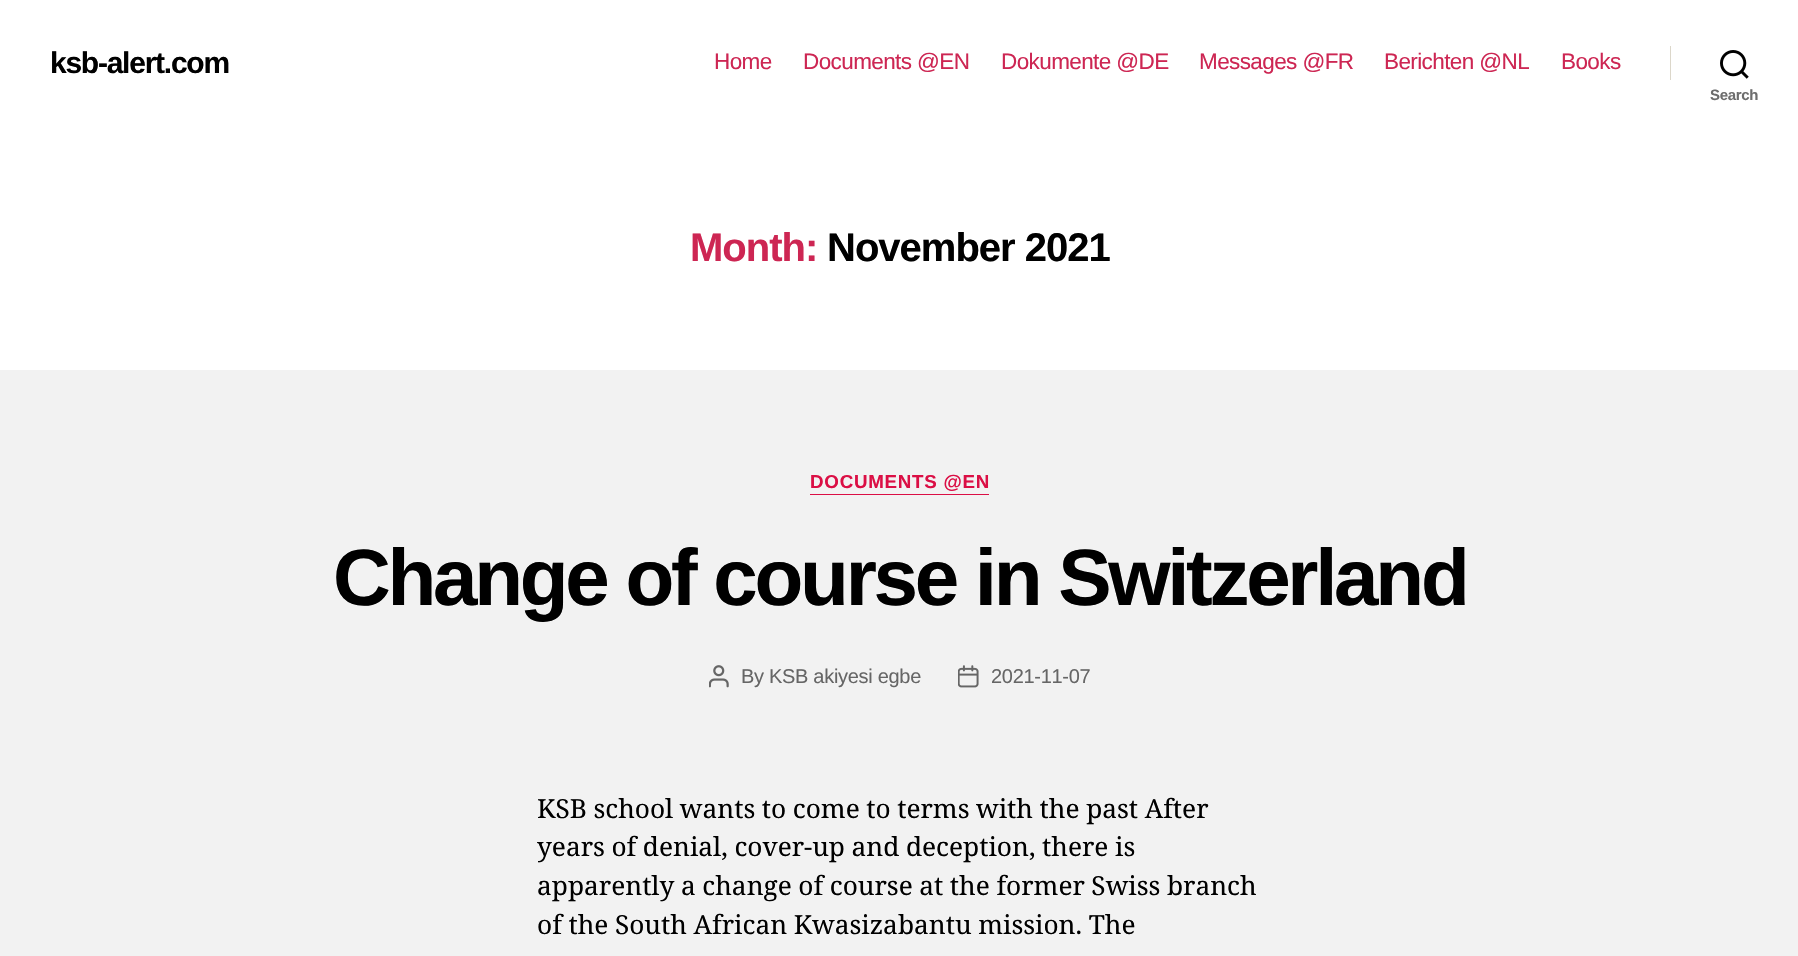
void draw(SkCanvas* canvas) {
  SkPaint paint;
  paint.setAntiAlias(true);
  auto face = [&](const char* family, int weight, float size, bool italic = false) {
    SkFontStyle style(weight, SkFontStyle::kNormal_Width,
      italic ? SkFontStyle::kItalic_Slant : SkFontStyle::kUpright_Slant);
    SkFont result(fontMgr->matchFamilyStyle(family, style), size);
    result.setSubpixel(true);
    return result;
  };
  auto writeSpaced = [&](const char* s, float x, float y, const SkFont& font, const SkPaint& ink, float letter, float word) {
    std::vector<SkGlyphID> glyphs(font.countText(s, strlen(s), SkTextEncoding::kUTF8));
    std::vector<float> xs(glyphs.size());
    font.textToGlyphs(s, strlen(s), SkTextEncoding::kUTF8, glyphs);
    font.getXPos(glyphs, xs, x);
    float extra = 0;
    for (size_t i = 0; i < glyphs.size(); i++) {
      xs[i] += extra;
      extra += letter + word * (glyphs[i] == font.unicharToGlyph(' '));
    }
    canvas->drawTextBlob(SkTextBlob::MakeFromPosHGlyphs(glyphs, xs, y, font), 0, 0, ink);
  };
  auto paste = [&](const char* path, float x, float y, float w, float h) {
    auto image = SkImages::DeferredFromEncodedData(SkData::MakeFromFileName(path));
    canvas->drawImageRect(image, SkRect::MakeXYWH(x, y, w, h), SkSamplingOptions());
  };
  canvas->clear(0xfff2f2f2);
  paint.setColor(0xffffffff);
  canvas->drawRect(SkRect::MakeXYWH(0, 0, 1798, 370), paint);
  paint.setColor(0xffdcd7ca);
  canvas->drawRect(SkRect::MakeXYWH(1670, 46, 1, 34), paint);
  paste("img/1.png", 1720, 50, 29, 29);
  paint.setColor(0xffdb0f45);
  canvas->drawRect(SkRect::MakeXYWH(810, 494, 179, 1), paint);
  paste("img/2.png", 709, 665, 20, 23);
  paste("img/3.png", 958, 665, 21, 23);
  auto f0 = face("Liberation Sans", 700, 30);
  paint.setColor(0xff000000);
  writeSpaced("ksb-alert.com", 50, 73, f0, paint, -1.25f, 0);
  auto f1 = face("Liberation Sans", 400, 22.5f);
  paint.setColor(0xffcd2653);
  {
    const struct { const char* s; float x, y; } items[] = {
      {"Home", 714, 69},
      {"Documents @EN", 803, 69},
      {"Dokumente @DE", 1001, 69},
      {"Messages @FR", 1199, 69},
      {"Berichten @NL", 1384, 69},
      {"Books", 1561, 69},
    };
    for (auto [s, x, y] : items) {
      writeSpaced(s, x, y, f1, paint, -0.6f, 0);
    }
  }
  auto f2 = face("Liberation Sans", 700, 15);
  paint.setColor(0xff6d6d6d);
  writeSpaced("Search", 1710, 100, f2, paint, -0.3f, 0);
  auto f3 = face("Liberation Sans", 700, 40);
  paint.setColor(0xffcd2653);
  writeSpaced("Month:", 690, 261, f3, paint, -1, 0);
  paint.setColor(0xff000000);
  writeSpaced("November 2021", 827, 261, f3, paint, -1, 0);
  auto f4 = face("Liberation Sans", 700, 18.75f);
  paint.setColor(0xffdb0f45);
  writeSpaced("DOCUMENTS @EN", 810, 488, f4, paint, 0.75f, 0);
  auto f5 = face("Liberation Sans", 700, 80);
  paint.setColor(0xff000000);
  writeSpaced("Change of course in Switzerland", 333, 605, f5, paint, -3.3f, 0);
  auto f6 = face("Liberation Sans", 400, 20);
  paint.setColor(0xff666666);
  writeSpaced("By KSB akiyesi egbe", 741, 683, f6, paint, -0.3f, 0);
  writeSpaced("2021-11-07", 991, 683, f6, paint, -0.3f, 0);
  auto f7 = face("Noto Serif", 400, 26.25f);
  paint.setColor(0xff000000);
  {
    const struct { const char* s; float x, y; } items[] = {
      {"KSB school wants to come to terms with the past After", 537, 818},
      {"years of denial, cover-up and deception, there is", 537, 856},
      {"apparently a change of course at the former Swiss branch", 537, 895},
      {"of the South African Kwasizabantu mission. The", 537, 934},
    };
    for (auto [s, x, y] : items) {
      writeSpaced(s, x, y, f7, paint, 0, -0.25f);
    }
  }
}
